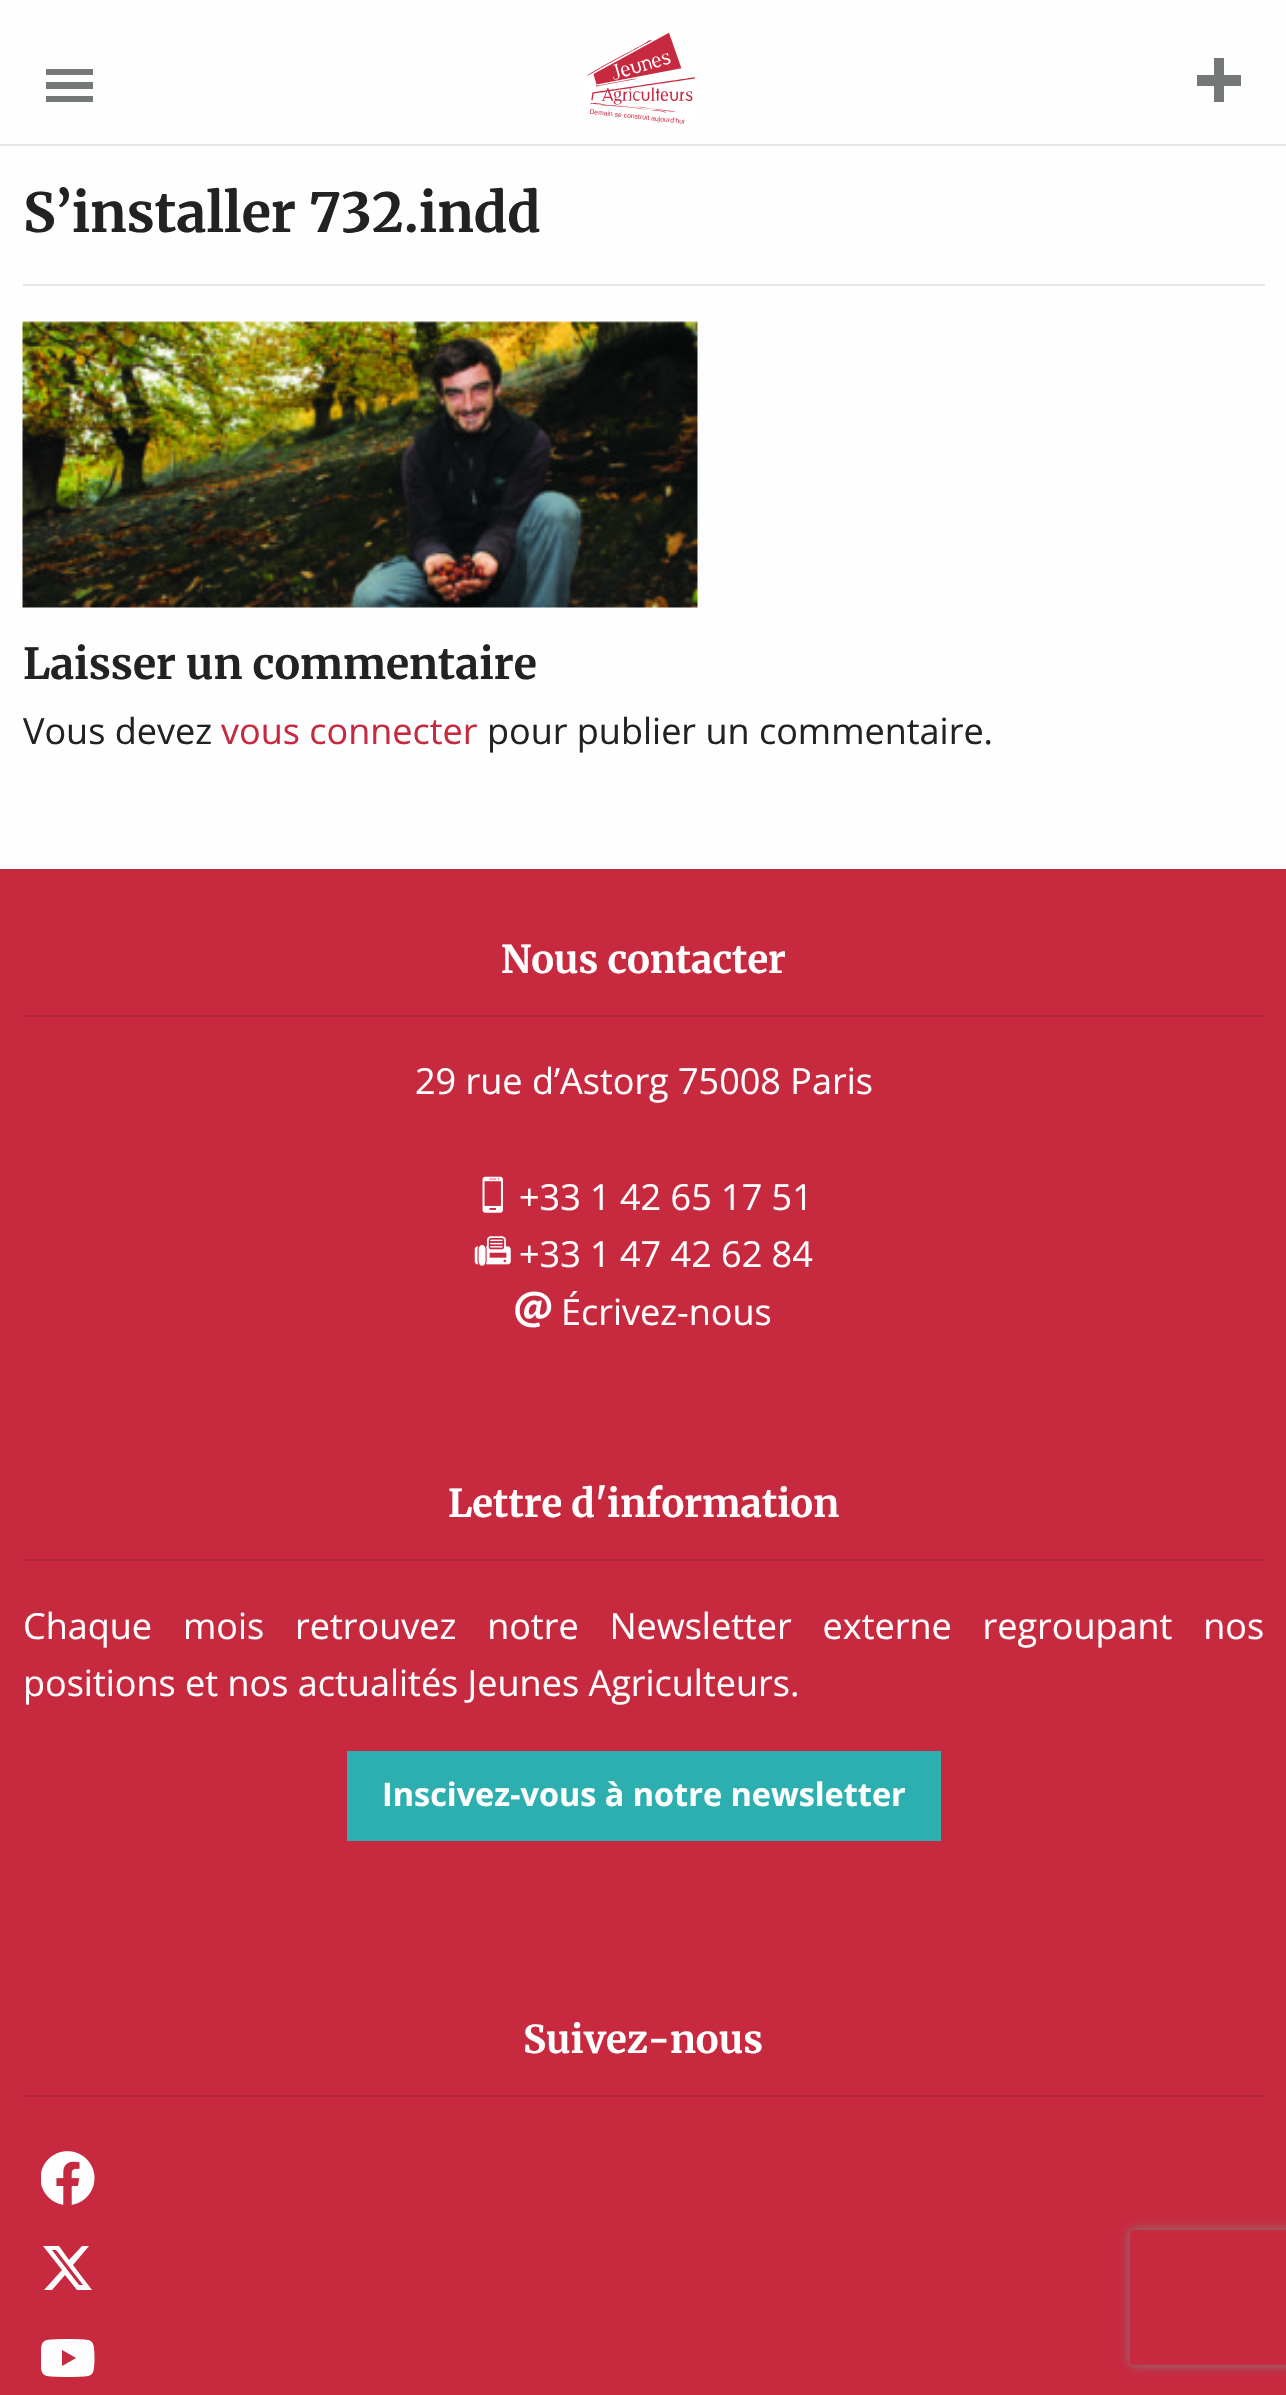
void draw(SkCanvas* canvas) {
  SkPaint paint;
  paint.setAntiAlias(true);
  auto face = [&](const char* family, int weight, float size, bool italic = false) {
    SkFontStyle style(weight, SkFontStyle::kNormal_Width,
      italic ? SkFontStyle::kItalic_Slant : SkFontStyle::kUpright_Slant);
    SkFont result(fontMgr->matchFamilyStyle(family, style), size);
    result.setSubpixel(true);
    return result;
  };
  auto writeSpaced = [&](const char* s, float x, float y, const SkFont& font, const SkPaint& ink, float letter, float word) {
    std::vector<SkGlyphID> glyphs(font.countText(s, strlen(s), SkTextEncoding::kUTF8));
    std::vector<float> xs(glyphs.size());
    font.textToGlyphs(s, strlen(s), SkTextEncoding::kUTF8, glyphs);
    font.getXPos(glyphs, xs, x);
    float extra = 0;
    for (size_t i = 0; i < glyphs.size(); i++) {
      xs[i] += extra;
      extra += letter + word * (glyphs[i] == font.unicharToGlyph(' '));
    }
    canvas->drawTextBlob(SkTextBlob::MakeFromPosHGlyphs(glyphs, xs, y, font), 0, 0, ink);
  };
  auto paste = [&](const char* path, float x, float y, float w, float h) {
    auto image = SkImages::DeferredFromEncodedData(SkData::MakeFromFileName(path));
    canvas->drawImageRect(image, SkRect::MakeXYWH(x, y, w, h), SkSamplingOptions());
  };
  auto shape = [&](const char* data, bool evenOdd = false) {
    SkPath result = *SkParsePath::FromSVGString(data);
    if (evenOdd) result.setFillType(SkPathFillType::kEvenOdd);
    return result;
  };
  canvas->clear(0xfffefefe);
  paint.setColor(0xffe6e6e6);
  canvas->drawRect(SkRect::MakeXYWH(0, 144, 1286, 2), paint);
  paint.setColor(0xff747877);
  canvas->drawPath(shape("M46 102H93V96H46ZM46 69V75H93V69ZM46 89H93V82H46Z"), paint);
  paste("img/1.png", 586, 32, 109, 92);
  canvas->drawPath(shape("M1241 75V86H1224V102H1214V86H1197V75H1214V58H1224V75Z"), paint);
  paint.setColor(0xffe6e6e6);
  canvas->drawRect(SkRect::MakeXYWH(23, 284, 1242, 2), paint);
  paste("img/2.png", 22, 321, 676, 287);
  paint.setColor(0xffc7293f);
  canvas->drawRect(SkRect::MakeXYWH(0, 869, 1286, 1526), paint);
  paint.setColor(0xffb22538);
  canvas->drawRect(SkRect::MakeXYWH(23, 1015, 1242, 2), paint);
  paste("img/3.png", 482, 1176, 21, 37);
  paste("img/4.png", 474, 1236, 37, 30);
  paste("img/5.png", 515, 1291, 37, 37);
  {
    const struct { float x, y, w, h; SkColor color; } items[] = {
      {23, 1559, 1242, 2, 0xffb22538},
      {347, 1751, 594, 90, 0xff2eafaf},
      {23, 2095, 1242, 2, 0xffb22538},
    };
    for (auto [x, y, w, h, color] : items) {
      paint.setColor(color);
      canvas->drawRect(SkRect::MakeXYWH(x, y, w, h), paint);
    }
  }
  paste("img/6.png", 41, 2151, 54, 54);
  paint.setColor(0xfffefefe);
  canvas->drawPath(shape("M82 2246H89L73 2265L92 2290H77L65 2275L52 2290H44L62 2270L43 2246H59L69 2260ZM79 2285H83L56 2250H52Z"), paint);
  paste("img/7.png", 41, 2339, 54, 38);
  canvas->save();
  canvas->clipPath(shape("M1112 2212H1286V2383H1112ZM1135 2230H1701C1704 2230 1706 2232 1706 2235V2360C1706 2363 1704 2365 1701 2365H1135C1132 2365 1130 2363 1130 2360V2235C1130 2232 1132 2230 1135 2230Z", true), true);
  paint.setColor(0xff808080);
  paint.setMaskFilter(SkMaskFilter::MakeBlur(kNormal_SkBlurStyle, 5.5f));
  canvas->drawRoundRect(SkRect::MakeXYWH(1130, 2230, 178, 135), 5, 5, paint);
  paint.setMaskFilter(nullptr);
  canvas->restore();
  auto f0 = face("Merriweather", 300, 54);
  paint.setColor(0xff222222);
  canvas->drawString("S’installer 732.indd", 23, 232, f0, paint);
  auto f1 = face("Merriweather", 300, 42.75f);
  canvas->drawString("Laisser un commentaire", 23, 679, f1, paint);
  auto f2 = face("Open Sans", 400, 36);
  canvas->drawString("Vous devez", 23, 744, f2, paint);
  paint.setColor(0xffc7293f);
  canvas->drawString("vous connecter", 221, 744, f2, paint);
  paint.setColor(0xff222222);
  canvas->drawString("pour publier un commentaire.", 487, 744, f2, paint);
  auto f3 = face("Merriweather", 300, 38.25f);
  paint.setColor(0xfffefefe);
  canvas->drawString("Nous contacter", 501, 973, f3, paint);
  {
    const struct { const char* s; float x, y; } items[] = {
      {"29 rue d’Astorg 75008 Paris", 415, 1094},
      {"+33 1 42 65 17 51", 519, 1210},
      {"+33 1 47 42 62 84", 519, 1267},
      {"Écrivez-nous", 561, 1325},
    };
    for (auto [s, x, y] : items) {
      canvas->drawString(s, x, y, f2, paint);
    }
  }
  canvas->drawString("Lettre d'information", 448, 1517, f3, paint);
  writeSpaced("Chaque mois retrouvez notre Newsletter externe regroupant nos", 23, 1639, f2, paint, 0, 21.5f);
  canvas->drawString("positions et nos actualités Jeunes Agriculteurs.", 23, 1696, f2, paint);
  auto f4 = face("Open Sans", 700, 32.4f);
  canvas->drawString("Inscivez-vous à notre newsletter", 382, 1806, f4, paint);
  canvas->drawString("Suivez-nous", 523, 2053, f3, paint);
}
